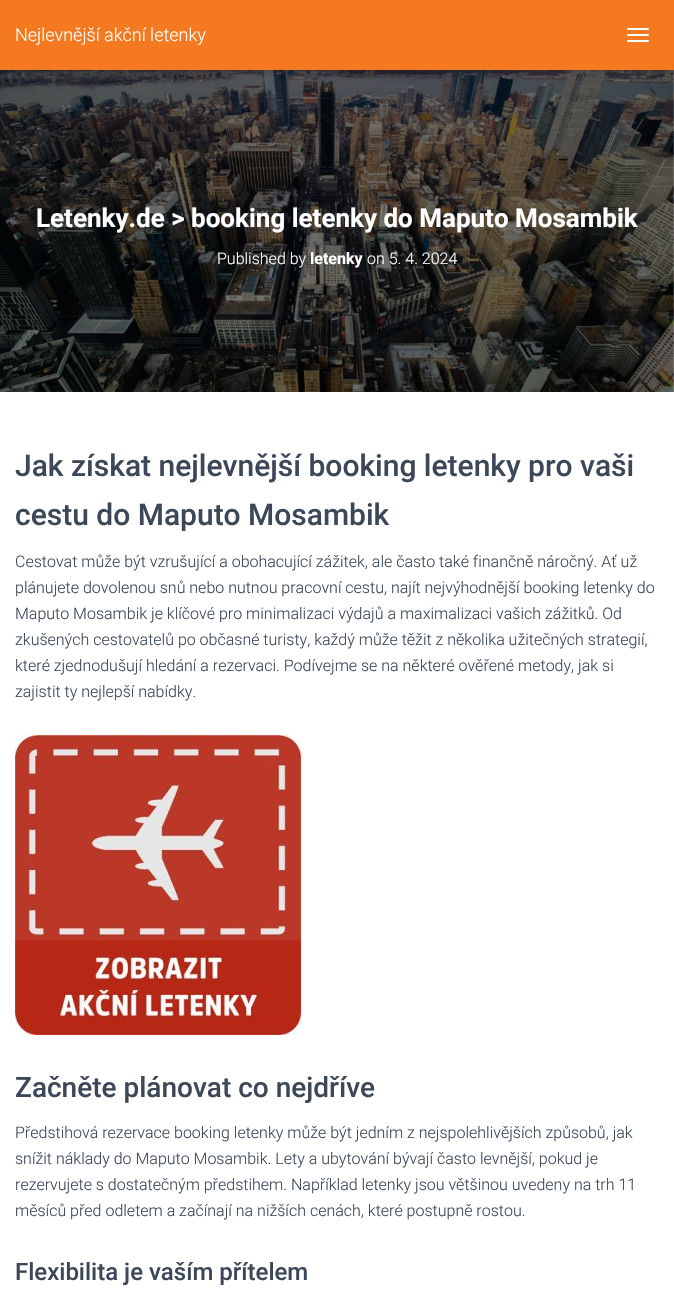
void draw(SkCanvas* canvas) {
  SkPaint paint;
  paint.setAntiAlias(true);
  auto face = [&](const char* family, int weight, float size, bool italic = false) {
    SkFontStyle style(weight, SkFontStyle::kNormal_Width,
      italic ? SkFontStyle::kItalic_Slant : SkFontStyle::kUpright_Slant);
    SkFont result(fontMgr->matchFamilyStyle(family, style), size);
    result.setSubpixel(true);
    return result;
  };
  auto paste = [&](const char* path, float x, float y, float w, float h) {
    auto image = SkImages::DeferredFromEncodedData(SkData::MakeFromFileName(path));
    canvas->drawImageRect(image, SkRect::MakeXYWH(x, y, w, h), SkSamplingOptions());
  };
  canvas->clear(0xffffffff);
  paste("img/1.png", 0, 70, 674, 322);
  paint.setColor(0x1a000000);
  paint.setMaskFilter(SkMaskFilter::MakeBlur(kNormal_SkBlurStyle, 2.5f));
  canvas->drawRect(SkRect::MakeXYWH(2, 6, 670, 66), paint);
  paint.setMaskFilter(nullptr);
  paint.setColor(0x1f000000);
  paint.setMaskFilter(SkMaskFilter::MakeBlur(kNormal_SkBlurStyle, 5));
  canvas->drawRect(SkRect::MakeXYWH(0, 1, 674, 70), paint);
  paint.setMaskFilter(nullptr);
  paint.setColor(0x6b000000);
  paint.setMaskFilter(SkMaskFilter::MakeBlur(kNormal_SkBlurStyle, 5));
  canvas->drawRect(SkRect::MakeXYWH(6, 7, 662, 58), paint);
  paint.setMaskFilter(nullptr);
  paint.setColor(0xfff47920);
  canvas->drawRect(SkRect::MakeXYWH(0, 0, 674, 70), paint);
  paint.setColor(0xffffffff);
  canvas->drawRoundRect(SkRect::MakeXYWH(627, 28, 22, 2), 1, 1, paint);
  canvas->drawRoundRect(SkRect::MakeXYWH(627, 34, 22, 2), 1, 1, paint);
  canvas->drawRoundRect(SkRect::MakeXYWH(627, 40, 22, 2), 1, 1, paint);
  paste("img/2.png", 15, 735, 286, 300);
  auto f0 = face("Roboto", 300, 18);
  canvas->drawString("Nejlevnější akční letenky", 15, 41, f0, paint);
  auto f1 = face("Roboto", 700, 26);
  canvas->drawString("Letenky.de > booking letenky do Maputo Mosambik", 36, 227, f1, paint);
  auto f2 = face("Roboto", 300, 16);
  canvas->drawString("Published by", 217, 264, f2, paint);
  auto f3 = face("Roboto", 700, 16);
  canvas->drawString("letenky", 310, 264, f3, paint);
  canvas->drawString("on 5. 4. 2024", 367, 264, f2, paint);
  auto f4 = face("Roboto", 500, 30);
  paint.setColor(0xff3c4858);
  canvas->drawString("Jak získat nejlevnější booking letenky pro vaši", 15, 476, f4, paint);
  canvas->drawString("cestu do Maputo Mosambik", 15, 525, f4, paint);
  {
    const struct { const char* s; float x, y; } items[] = {
      {"Cestovat může být vzrušující a obohacující zážitek, ale často také finančně náročný. Ať už", 15, 567},
      {"plánujete dovolenou snů nebo nutnou pracovní cestu, najít nejvýhodnější booking letenky do", 15, 593},
      {"Maputo Mosambik je klíčové pro minimalizaci výdajů a maximalizaci vašich zážitků. Od", 15, 619},
      {"zkušených cestovatelů po občasné turisty, každý může těžit z několika užitečných strategií,", 15, 645},
      {"které zjednodušují hledání a rezervaci. Podívejme se na některé ověřené metody, jak si", 15, 671},
      {"zajistit ty nejlepší nabídky.", 15, 697},
    };
    for (auto [s, x, y] : items) {
      canvas->drawString(s, x, y, f2, paint);
    }
  }
  auto f5 = face("Roboto", 500, 28);
  canvas->drawString("Začněte plánovat co nejdříve", 15, 1097, f5, paint);
  {
    const struct { const char* s; float x, y; } items[] = {
      {"Předstihová rezervace booking letenky může být jedním z nejspolehlivějších způsobů, jak", 15, 1138},
      {"snížit náklady do Maputo Mosambik. Lety a ubytování bývají často levnější, pokud je", 15, 1164},
      {"rezervujete s dostatečným předstihem. Například letenky jsou většinou uvedeny na trh 11", 15, 1190},
      {"měsíců před odletem a začínají na nižších cenách, které postupně rostou.", 15, 1216},
    };
    for (auto [s, x, y] : items) {
      canvas->drawString(s, x, y, f2, paint);
    }
  }
  auto f6 = face("Roboto", 500, 24);
  canvas->drawString("Flexibilita je vaším přítelem", 15, 1280, f6, paint);
}
